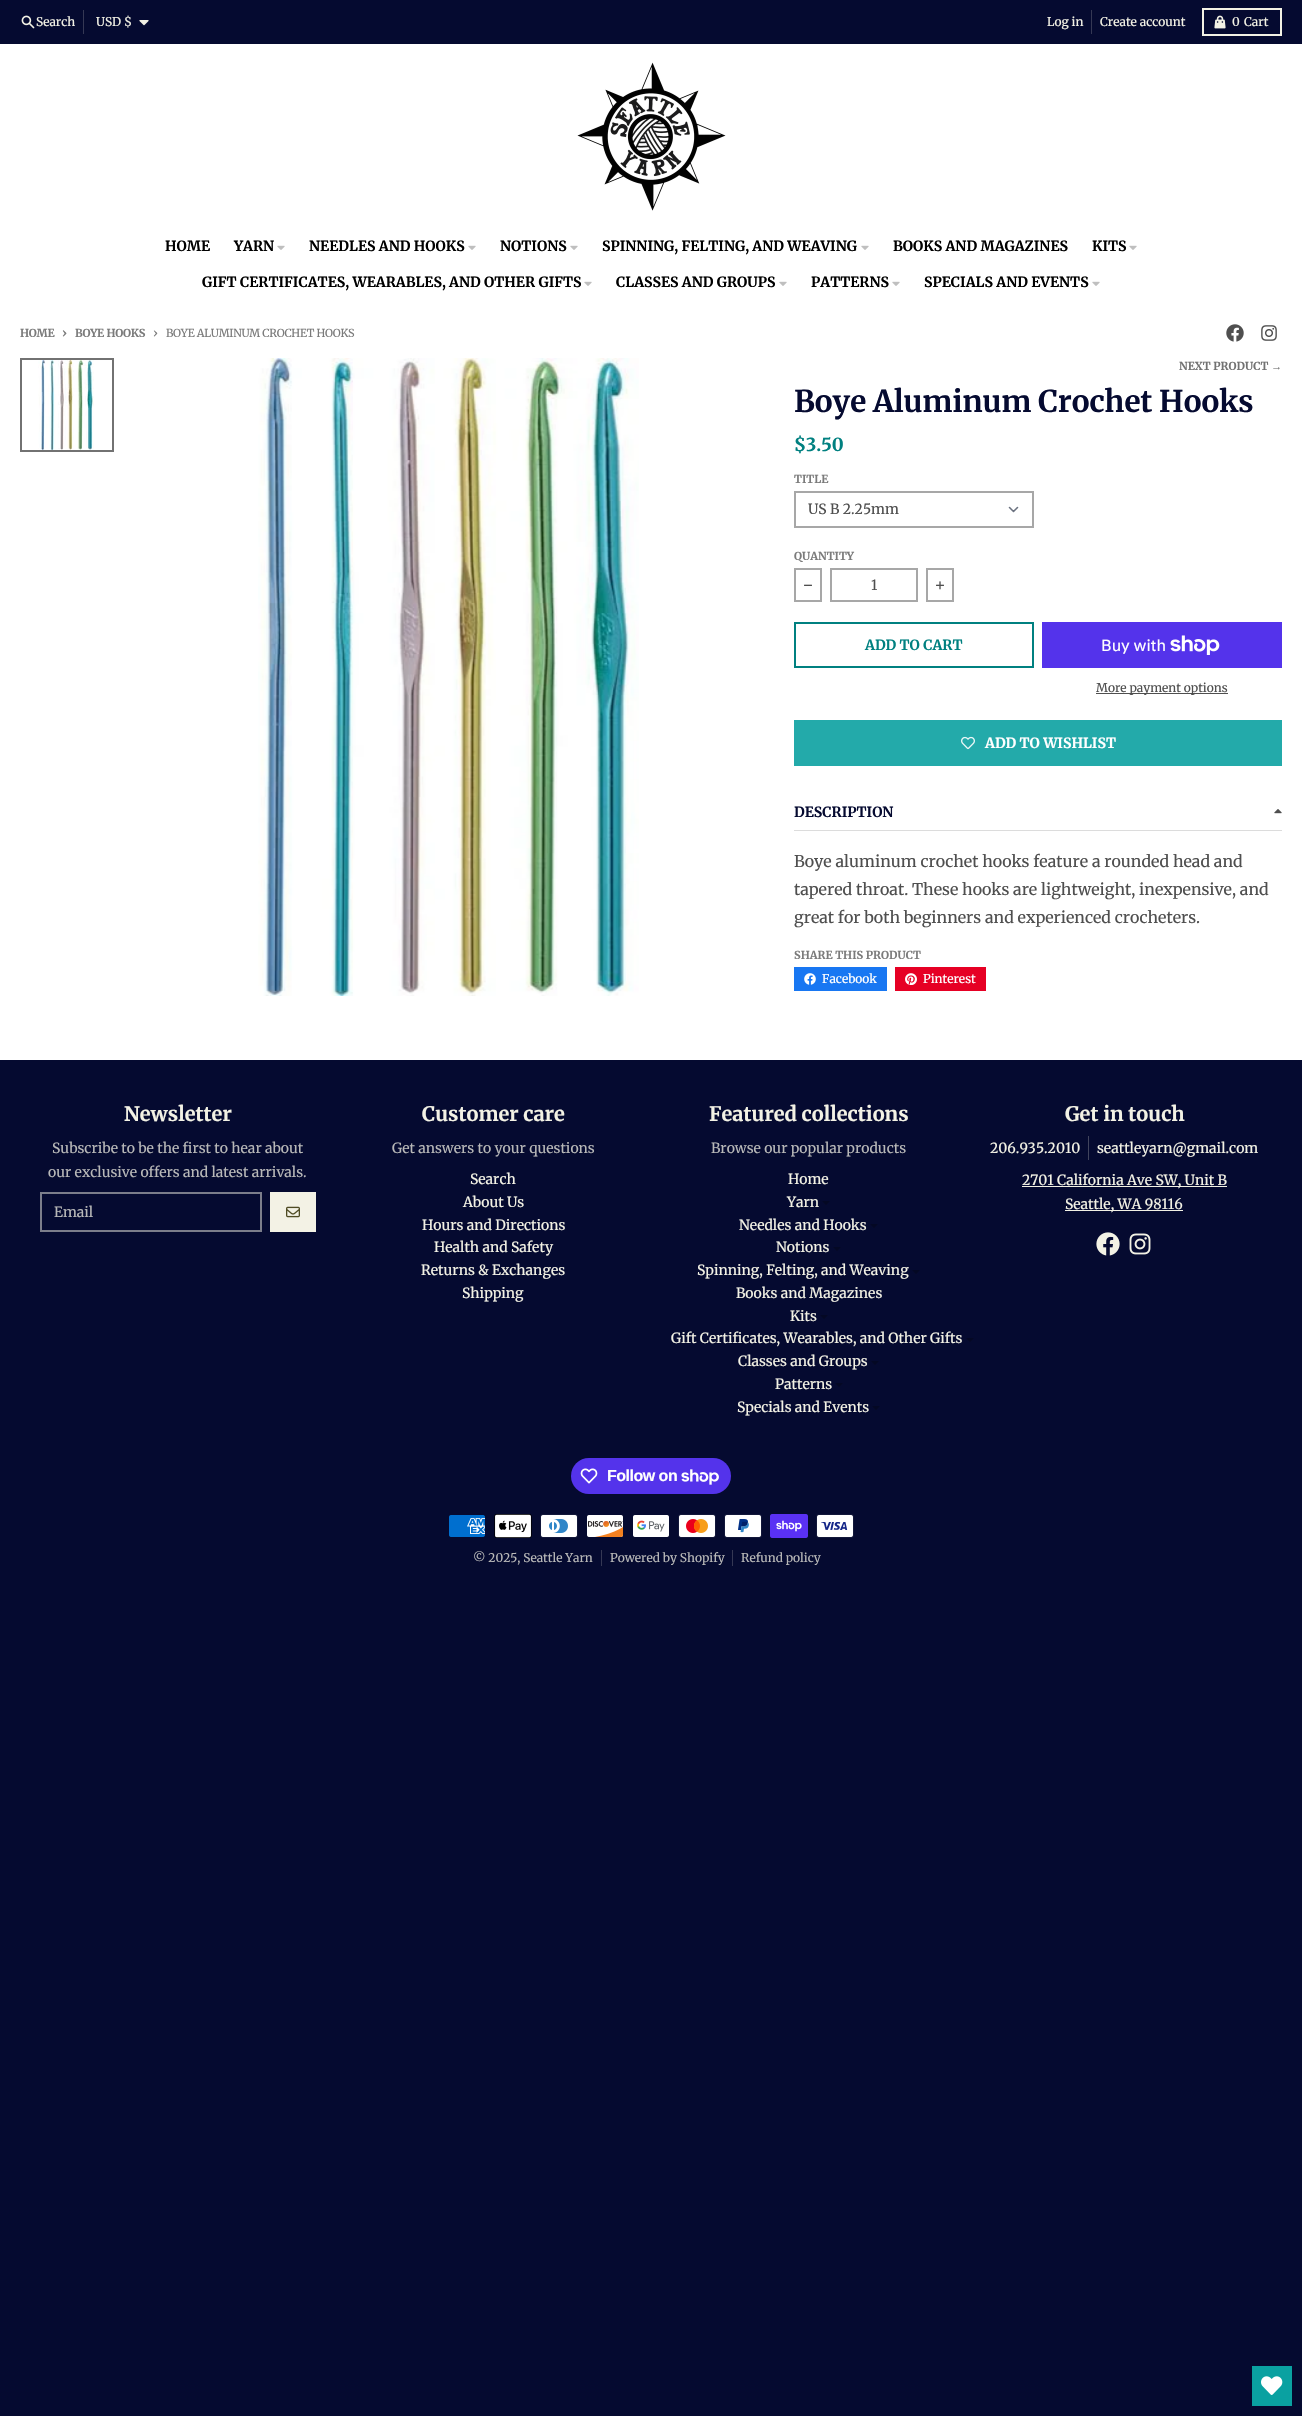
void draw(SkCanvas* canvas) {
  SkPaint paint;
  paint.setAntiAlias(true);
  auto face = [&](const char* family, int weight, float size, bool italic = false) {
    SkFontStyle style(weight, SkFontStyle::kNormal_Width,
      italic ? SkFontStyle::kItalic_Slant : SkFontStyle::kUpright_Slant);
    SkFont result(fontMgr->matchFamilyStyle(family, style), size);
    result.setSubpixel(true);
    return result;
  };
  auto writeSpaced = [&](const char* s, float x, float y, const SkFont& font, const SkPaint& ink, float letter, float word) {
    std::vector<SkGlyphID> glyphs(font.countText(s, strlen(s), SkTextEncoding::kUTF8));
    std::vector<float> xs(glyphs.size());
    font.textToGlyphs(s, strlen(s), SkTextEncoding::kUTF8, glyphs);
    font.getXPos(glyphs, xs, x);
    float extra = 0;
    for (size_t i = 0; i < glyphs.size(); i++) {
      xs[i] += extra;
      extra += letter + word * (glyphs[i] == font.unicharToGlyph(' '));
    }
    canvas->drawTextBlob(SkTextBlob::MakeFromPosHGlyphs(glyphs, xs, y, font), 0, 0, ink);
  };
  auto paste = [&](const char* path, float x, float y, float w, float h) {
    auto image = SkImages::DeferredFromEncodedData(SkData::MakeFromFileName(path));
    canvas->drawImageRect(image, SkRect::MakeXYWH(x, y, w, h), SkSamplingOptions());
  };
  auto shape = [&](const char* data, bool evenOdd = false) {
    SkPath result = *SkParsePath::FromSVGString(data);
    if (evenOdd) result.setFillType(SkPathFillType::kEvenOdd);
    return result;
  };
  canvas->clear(0xff050a30);
  paste("img/1.png", 21, 15, 14, 14);
  paint.setColor(0xff353854);
  canvas->drawRect(SkRect::MakeXYWH(83, 10, 1, 24), paint);
  paste("img/2.png", 139, 20, 10, 6);
  canvas->drawRect(SkRect::MakeXYWH(1091, 10, 1, 24), paint);
  paint.setStroke(true);
  paint.setStrokeWidth(2);
  paint.setColor(0xfff3f2e5);
  canvas->drawRect(SkRect::MakeXYWH(1203, 9, 78, 26), paint);
  paste("img/3.png", 1214, 15, 12, 14);
  paint.setStroke(false);
  paint.setColor(0xffffffff);
  canvas->drawRect(SkRect::MakeXYWH(0, 44, 1302, 1016), paint);
  paste("img/4.png", 577, 62, 149, 149);
  paste("img/5.png", 277, 245, 8, 5);
  paste("img/5.png", 468, 245, 8, 5);
  paste("img/5.png", 570, 245, 8, 5);
  paste("img/5.png", 861, 245, 8, 5);
  paste("img/5.png", 1129, 245, 8, 5);
  paste("img/5.png", 584, 281, 8, 5);
  paste("img/5.png", 779, 281, 8, 5);
  paste("img/5.png", 892, 281, 8, 5);
  paste("img/5.png", 1092, 281, 8, 5);
  paste("img/6.png", 1226, 324, 18, 18);
  paste("img/7.png", 1261, 325, 16, 16);
  paint.setStroke(true);
  paint.setColor(0xff727272);
  canvas->drawRect(SkRect::MakeXYWH(21, 359, 92, 92), paint);
  paste("img/8.png", 38, 360, 56, 90);
  paste("img/9.png", 258, 358, 381, 638);
  paint.setStrokeWidth(1.6f);
  paint.setStrokeCap(SkPaint::kRound_Cap);
  paint.setStrokeJoin(SkPaint::kRound_Join);
  paint.setColor(0xff6b7280);
  canvas->drawPath(shape("M1009.5 507.5L1013.5 511.5L1017.5 507.5"), paint);
  paint.setStrokeWidth(2);
  paint.setStrokeCap(SkPaint::kButt_Cap);
  paint.setStrokeJoin(SkPaint::kMiter_Join);
  paint.setColor(0xffa7a7a7);
  canvas->drawRect(SkRect::MakeXYWH(795, 492, 238, 35), paint);
  canvas->drawRect(SkRect::MakeXYWH(795, 569, 26, 32), paint);
  paste("img/10.png", 804, 584, 8, 2);
  canvas->drawRect(SkRect::MakeXYWH(831, 569, 86, 32), paint);
  canvas->drawRect(SkRect::MakeXYWH(927, 569, 26, 32), paint);
  paste("img/11.png", 936, 581, 8, 9);
  paint.setColor(0xff008080);
  canvas->drawRect(SkRect::MakeXYWH(795, 623, 238, 44), paint);
  paint.setStroke(false);
  paint.setColor(0xff5433eb);
  canvas->drawRect(SkRect::MakeXYWH(1042, 622, 240, 46), paint);
  paste("img/12.png", 1170, 635, 50, 20);
  paint.setColor(0xff4f4f4f);
  canvas->drawRect(SkRect::MakeXYWH(1096, 693, 132, 1), paint);
  paint.setColor(0xff23aaaa);
  canvas->drawRect(SkRect::MakeXYWH(794, 720, 488, 46), paint);
  paste("img/13.png", 961, 736, 14, 14);
  paint.setColor(0xffdcdcdc);
  canvas->drawRect(SkRect::MakeXYWH(794, 830, 488, 1), paint);
  paste("img/14.png", 1274, 809, 8, 5);
  paint.setColor(0xff1877f2);
  canvas->drawRect(SkRect::MakeXYWH(794, 967, 93, 24), paint);
  paste("img/15.png", 804, 973, 12, 12);
  paint.setColor(0xffe60024);
  canvas->drawRect(SkRect::MakeXYWH(895, 967, 91, 24), paint);
  paste("img/16.png", 905, 973, 12, 12);
  paint.setStroke(true);
  paint.setColor(0xff7c7e8b);
  canvas->drawRect(SkRect::MakeXYWH(41, 1193, 220, 38), paint);
  paint.setStroke(false);
  paint.setColor(0xfff3f2e5);
  canvas->drawRect(SkRect::MakeXYWH(270, 1192, 46, 40), paint);
  paste("img/17.png", 286, 1206, 14, 12);
  paste("img/18.png", 822, 1201, 8, 4);
  paste("img/18.png", 870, 1224, 8, 4);
  paste("img/18.png", 833, 1247, 8, 4);
  paste("img/18.png", 912, 1270, 8, 4);
  paste("img/18.png", 820, 1315, 8, 4);
  paste("img/18.png", 966, 1338, 8, 4);
  paste("img/18.png", 871, 1361, 8, 4);
  paste("img/18.png", 835, 1383, 8, 4);
  paste("img/18.png", 872, 1406, 8, 4);
  {
    const struct { float x, y, w, h; SkColor color; } items[] = {
      {1088, 1136, 1, 24, 0xff41445d},
      {1022, 1186, 205, 1, 0xfff3f2e5},
      {1065, 1210, 118, 1, 0xfff3f2e5},
    };
    for (auto [x, y, w, h, color] : items) {
      paint.setColor(color);
      canvas->drawRect(SkRect::MakeXYWH(x, y, w, h), paint);
    }
  }
  paste("img/19.png", 1096, 1232, 24, 24);
  paste("img/20.png", 1129, 1233, 22, 22);
  paint.setColor(0xff5433eb);
  canvas->drawRoundRect(SkRect::MakeXYWH(571, 1458, 160, 36), 18, 18, paint);
  paste("img/21.png", 580, 1468, 18, 16);
  paste("img/22.png", 681, 1469, 38, 16);
  paste("img/23.png", 449, 1515, 36, 22);
  paste("img/24.png", 494, 1514, 38, 24);
  paste("img/25.png", 540, 1514, 38, 24);
  paste("img/26.png", 587, 1515, 37, 22);
  paste("img/27.png", 633, 1515, 36, 22);
  paste("img/28.png", 678, 1514, 38, 24);
  paste("img/29.png", 724, 1514, 38, 24);
  paste("img/30.png", 770, 1514, 38, 24);
  paste("img/31.png", 816, 1514, 38, 24);
  {
    const struct { float x, y, w, h; SkColor color; } items[] = {
      {601, 1550, 1, 16, 0xff353854},
      {732, 1550, 1, 16, 0xff353854},
      {1252, 2366, 40, 40, 0xff0aa1a1},
    };
    for (auto [x, y, w, h, color] : items) {
      paint.setColor(color);
      canvas->drawRect(SkRect::MakeXYWH(x, y, w, h), paint);
    }
  }
  paste("img/32.png", 1261, 2376, 22, 19);
  auto f0 = face("Merriweather", 400, 12);
  paint.setColor(0xfff3f2e5);
  {
    const struct { const char* s; float x, y; } items[] = {
      {"Search", 36, 26},
      {"USD $", 96, 26},
      {"Log in", 1047, 26},
      {"Create account", 1100, 26},
      {"0", 1232, 26},
      {"Cart", 1244, 26},
    };
    for (auto [s, x, y] : items) {
      canvas->drawString(s, x, y, f0, paint);
    }
  }
  auto f1 = face("Merriweather", 700, 14);
  paint.setColor(0xff000000);
  {
    const struct { const char* s; float x, y; } items[] = {
      {"HOME", 165, 251},
      {"YARN", 234, 251},
      {"NEEDLES AND HOOKS", 309, 251},
      {"NOTIONS", 500, 251},
      {"SPINNING, FELTING, AND WEAVING", 602, 251},
      {"BOOKS AND MAGAZINES", 893, 251},
      {"KITS", 1092, 251},
      {"GIFT CERTIFICATES, WEARABLES, AND OTHER GIFTS", 202, 287},
      {"CLASSES AND GROUPS", 616, 287},
      {"PATTERNS", 811, 287},
      {"SPECIALS AND EVENTS", 924, 287},
    };
    for (auto [s, x, y] : items) {
      canvas->drawString(s, x, y, f1, paint);
    }
  }
  auto f2 = face("Merriweather", 700, 11);
  paint.setColor(0xff7b7b7b);
  writeSpaced("HOME", 20, 337, f2, paint, -0.25f, 0);
  auto f3 = face("Merriweather", 700, 12);
  writeSpaced("›", 62, 337, f3, paint, -0.25f, 0);
  writeSpaced("BOYE HOOKS", 75, 337, f2, paint, -0.25f, 0);
  writeSpaced("›", 153, 337, f0, paint, -0.25f, 0);
  auto f4 = face("Merriweather", 400, 11);
  writeSpaced("BOYE ALUMINUM CROCHET HOOKS", 166, 337, f4, paint, -0.25f, 0);
  paint.setColor(0xff727272);
  canvas->drawString("NEXT PRODUCT", 1179, 370, f2, paint);
  auto f5 = face("Liberation Serif", 700, 11);
  canvas->drawString("→", 1271, 370, f5, paint);
  auto f6 = face("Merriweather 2", 700, 30);
  paint.setColor(0xff050a30);
  canvas->drawString("Boye Aluminum Crochet Hooks", 794, 412, f6, paint);
  auto f7 = face("Merriweather", 700, 18);
  paint.setColor(0xff008080);
  canvas->drawString("$3.50", 794, 451, f7, paint);
  paint.setColor(0xff7b7b7b);
  canvas->drawString("TITLE", 794, 483, f2, paint);
  auto f8 = face("Merriweather", 400, 14);
  paint.setColor(0xff4f4f4f);
  canvas->drawString("US B 2.25mm", 808, 514, f8, paint);
  paint.setColor(0xff7b7b7b);
  canvas->drawString("QUANTITY", 794, 560, f2, paint);
  paint.setColor(0xff4f4f4f);
  canvas->drawString("1", 871, 590, f8, paint);
  paint.setColor(0xff008080);
  canvas->drawString("ADD TO CART", 865, 650, f1, paint);
  auto f9 = face("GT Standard", 400, 16);
  paint.setColor(0xffffffff);
  canvas->drawString("Buy with", 1101, 651, f9, paint);
  paint.setColor(0xff4f4f4f);
  canvas->drawString("More payment options", 1096, 692, f0, paint);
  paint.setColor(0xffffffff);
  canvas->drawString("ADD TO WISHLIST", 985, 748, f1, paint);
  paint.setColor(0xff050a30);
  canvas->drawString("DESCRIPTION", 794, 817, f1, paint);
  auto f10 = face("Merriweather", 400, 16);
  paint.setColor(0xff4f4f4f);
  {
    const struct { const char* s; float x, y; } items[] = {
      {"Boye aluminum crochet hooks feature a rounded head and", 794, 867},
      {"tapered throat. These hooks are lightweight, inexpensive, and", 794, 895},
      {"great for both beginners and experienced crocheters.", 794, 923},
    };
    for (auto [s, x, y] : items) {
      canvas->drawString(s, x, y, f10, paint);
    }
  }
  paint.setColor(0xff7b7b7b);
  canvas->drawString("SHARE THIS PRODUCT", 794, 959, f2, paint);
  paint.setColor(0xffffffff);
  canvas->drawString("Facebook", 822, 983, f0, paint);
  canvas->drawString("Pinterest", 923, 983, f0, paint);
  auto f11 = face("Merriweather", 700, 20);
  paint.setColor(0xfff3f2e5);
  canvas->drawString("Newsletter", 124, 1121, f11, paint);
  paint.setColor(0xffb8b8b8);
  {
    const struct { const char* s; float x, y; } items[] = {
      {"Subscribe to be the first to hear about", 52, 1153},
      {"our exclusive offers and latest arrivals.", 48, 1177},
      {"Email", 54, 1217},
    };
    for (auto [s, x, y] : items) {
      canvas->drawString(s, x, y, f8, paint);
    }
  }
  paint.setColor(0xfff3f2e5);
  canvas->drawString("Customer care", 422, 1121, f11, paint);
  paint.setColor(0xffb8b8b8);
  canvas->drawString("Get answers to your questions", 392, 1153, f8, paint);
  paint.setColor(0xfff3f2e5);
  {
    const struct { const char* s; float x, y; } items[] = {
      {"Search", 470, 1184},
      {"About Us", 463, 1207},
      {"Hours and Directions", 422, 1230},
      {"Health and Safety", 434, 1252},
      {"Returns & Exchanges", 421, 1275},
      {"Shipping", 462, 1298},
    };
    for (auto [s, x, y] : items) {
      canvas->drawString(s, x, y, f8, paint);
    }
  }
  canvas->drawString("Featured collections", 709, 1121, f11, paint);
  paint.setColor(0xffb8b8b8);
  canvas->drawString("Browse our popular products", 711, 1153, f8, paint);
  paint.setColor(0xfff3f2e5);
  {
    const struct { const char* s; float x, y; } items[] = {
      {"Home", 788, 1184},
      {"Yarn", 787, 1207},
      {"Needles and Hooks", 739, 1230},
      {"Notions", 776, 1252},
      {"Spinning, Felting, and Weaving", 697, 1275},
      {"Books and Magazines", 736, 1298},
      {"Kits", 790, 1321},
      {"Gift Certificates, Wearables, and Other Gifts", 671, 1343},
      {"Classes and Groups", 738, 1366},
      {"Patterns", 775, 1389},
      {"Specials and Events", 737, 1412},
    };
    for (auto [s, x, y] : items) {
      canvas->drawString(s, x, y, f8, paint);
    }
  }
  canvas->drawString("Get in touch", 1065, 1121, f11, paint);
  {
    const struct { const char* s; float x, y; } items[] = {
      {"206.935.2010", 990, 1153},
      {"seattleyarn@gmail.com", 1097, 1153},
      {"2701 California Ave SW, Unit B", 1022, 1185},
      {"Seattle, WA 98116", 1065, 1209},
    };
    for (auto [s, x, y] : items) {
      canvas->drawString(s, x, y, f8, paint);
    }
  }
  auto f12 = face("Liberation Sans", 700, 16);
  paint.setColor(0xffffffff);
  writeSpaced("Follow on", 607, 1481, f12, paint, -0.5f, 0);
  paint.setColor(0xffb8b8b8);
  {
    const struct { const char* s; float x, y; } items[] = {
      {"© 2025, Seattle Yarn", 473, 1562},
      {"Powered by Shopify", 610, 1562},
      {"Refund policy", 741, 1562},
    };
    for (auto [s, x, y] : items) {
      canvas->drawString(s, x, y, f0, paint);
    }
  }
}
